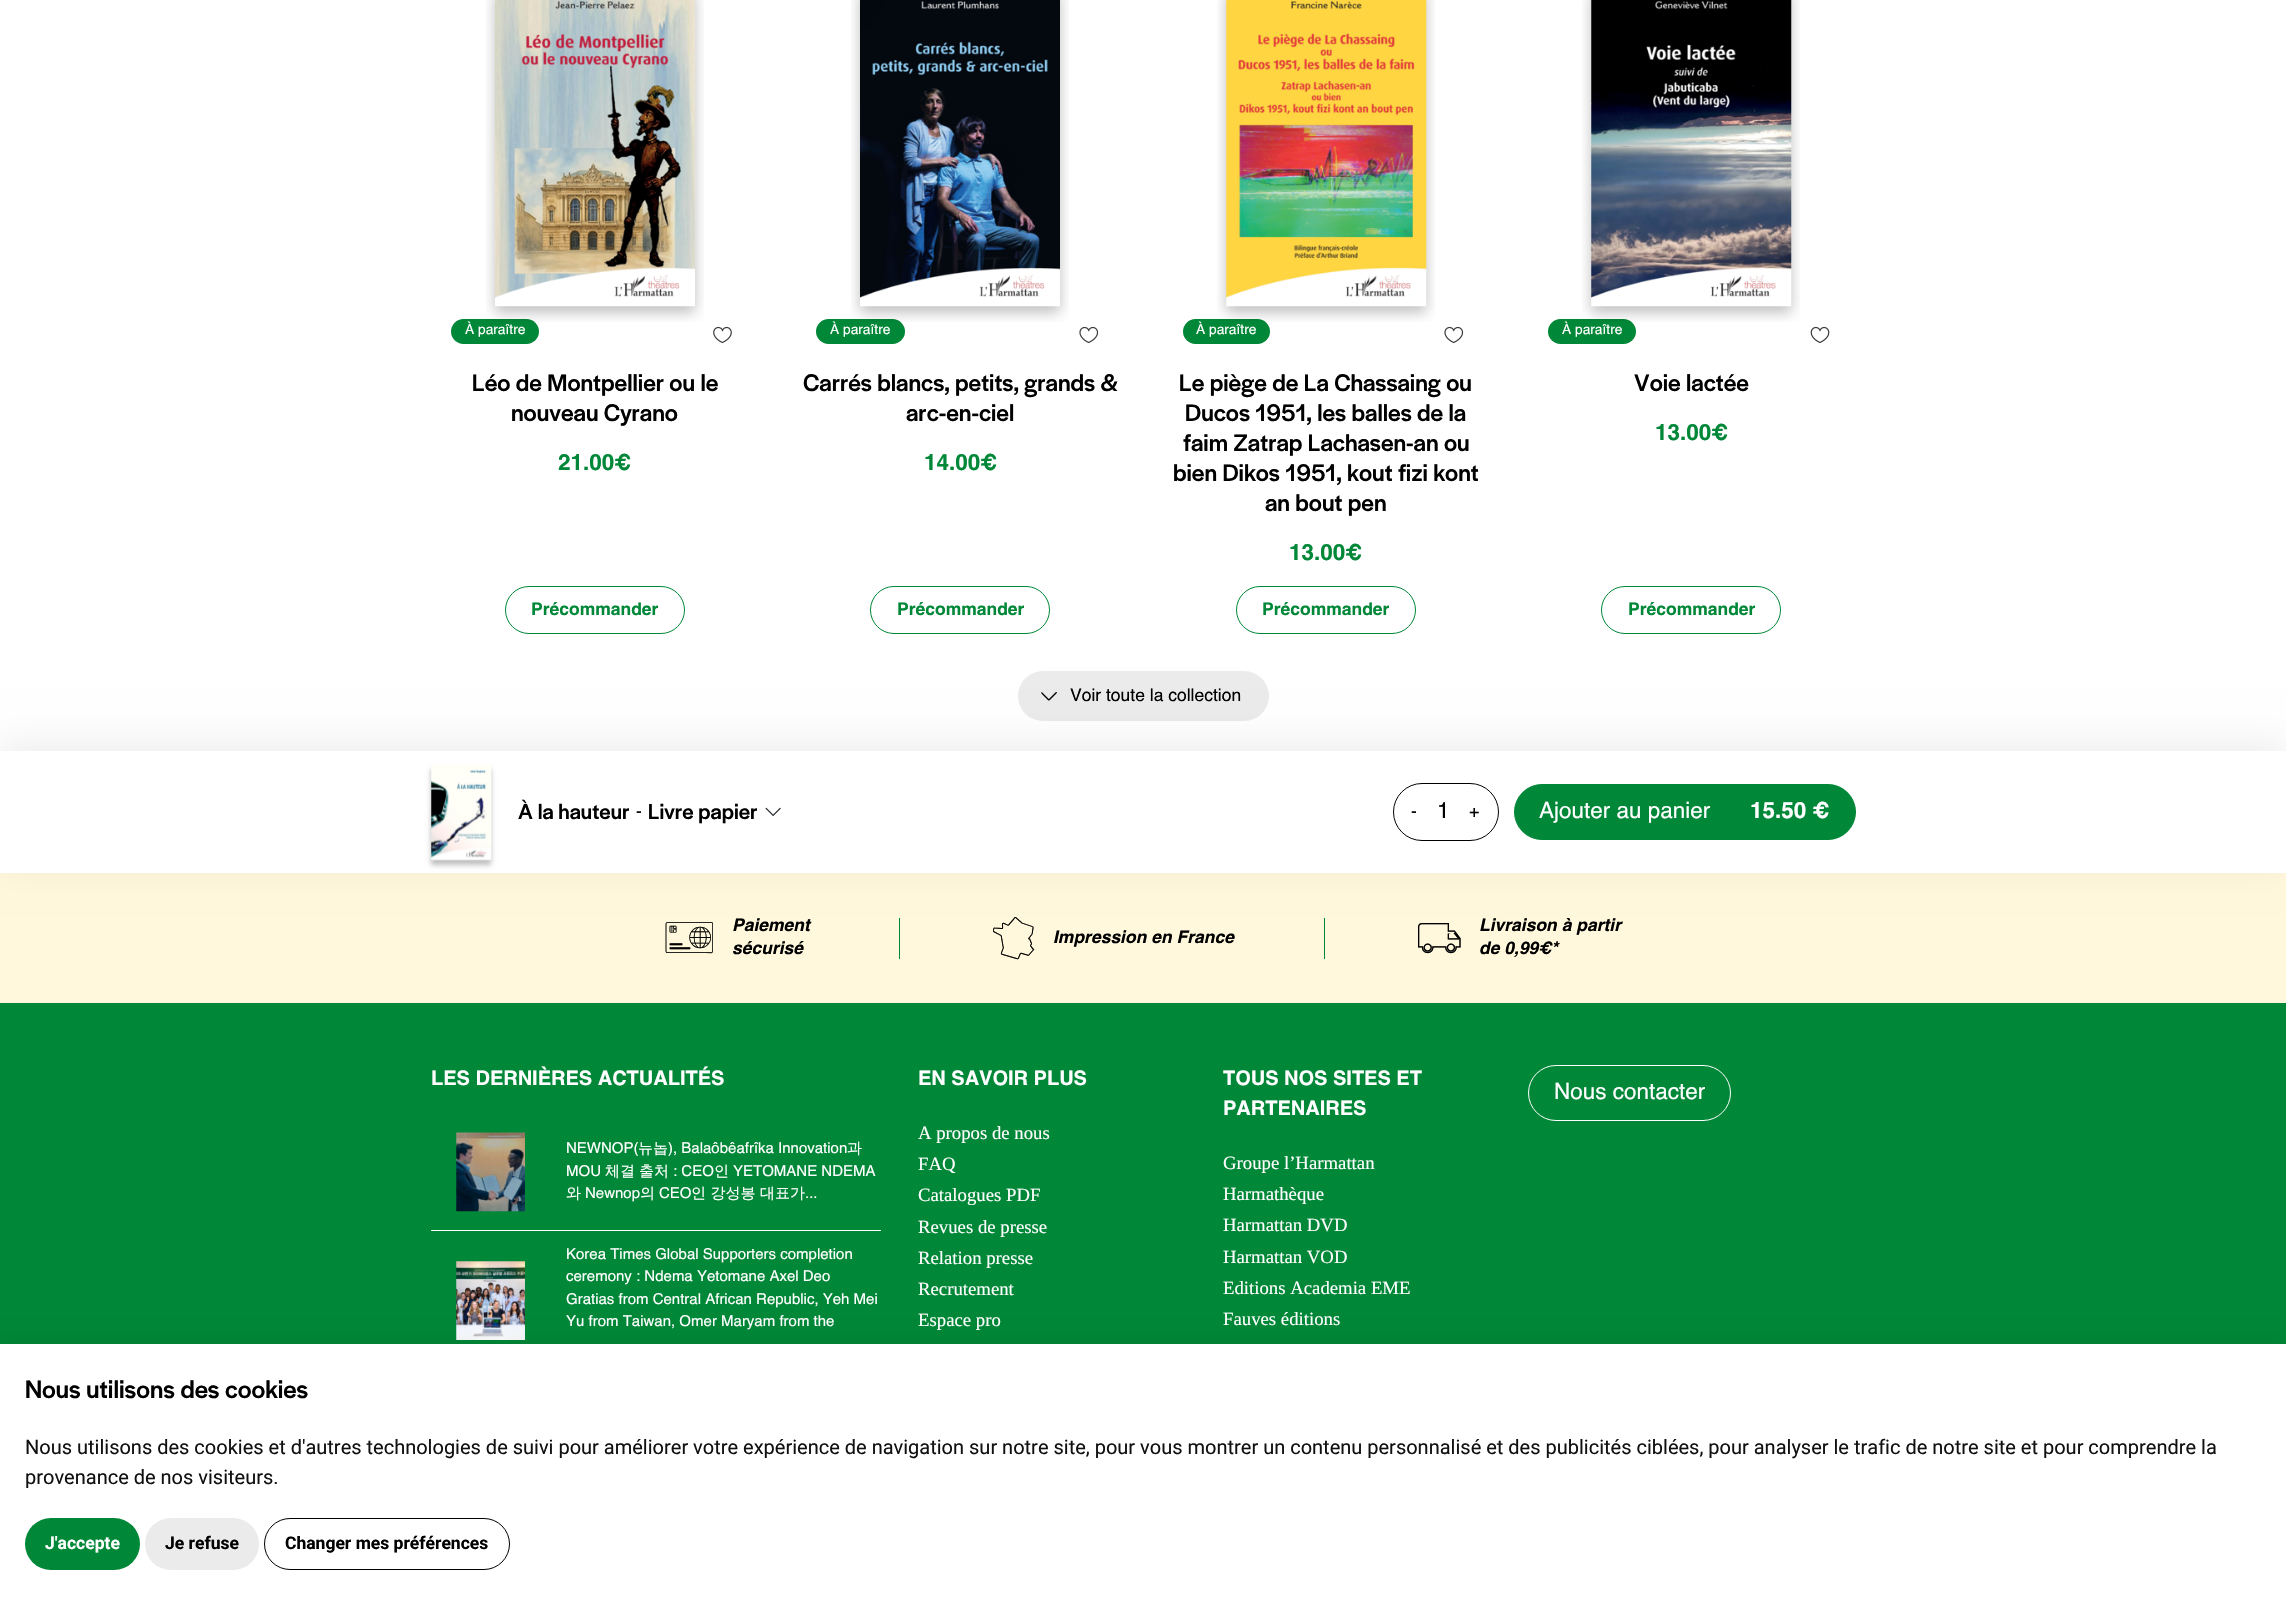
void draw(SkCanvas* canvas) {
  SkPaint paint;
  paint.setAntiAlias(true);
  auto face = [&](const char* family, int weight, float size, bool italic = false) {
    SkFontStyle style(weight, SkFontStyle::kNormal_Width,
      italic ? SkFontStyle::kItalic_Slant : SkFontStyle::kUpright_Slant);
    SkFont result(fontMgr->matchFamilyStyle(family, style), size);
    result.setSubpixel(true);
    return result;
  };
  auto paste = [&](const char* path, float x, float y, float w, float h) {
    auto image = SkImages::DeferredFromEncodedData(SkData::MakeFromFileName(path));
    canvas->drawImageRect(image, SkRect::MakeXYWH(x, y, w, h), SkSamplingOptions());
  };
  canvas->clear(0xffffffff);
  paint.setColor(0xff008737);
  canvas->drawRoundRect(SkRect::MakeXYWH(451, 319, 88, 25), 12.5f, 12.5f, paint);
  paste("img/2.png", 713, 326, 19, 18);
  paint.setStroke(true);
  paint.setStrokeWidth(1);
  canvas->drawRoundRect(SkRect::MakeXYWH(505.5f, 586.5f, 179, 47), 23.5f, 23.5f, paint);
  paint.setStroke(false);
  canvas->drawRoundRect(SkRect::MakeXYWH(816, 319, 89, 25), 12.5f, 12.5f, paint);
  paste("img/4.png", 1079, 326, 20, 18);
  paint.setStroke(true);
  canvas->drawRoundRect(SkRect::MakeXYWH(870.5f, 586.5f, 179, 47), 23.5f, 23.5f, paint);
  paint.setStroke(false);
  canvas->drawRoundRect(SkRect::MakeXYWH(1183, 319, 87, 25), 12.5f, 12.5f, paint);
  paste("img/4.png", 1444, 326, 20, 18);
  paint.setStroke(true);
  canvas->drawRoundRect(SkRect::MakeXYWH(1236.5f, 586.5f, 179, 47), 23.5f, 23.5f, paint);
  paint.setStroke(false);
  canvas->drawRoundRect(SkRect::MakeXYWH(1548, 319, 88, 25), 12.5f, 12.5f, paint);
  paste("img/7.png", 1810, 326, 20, 18);
  paint.setStroke(true);
  canvas->drawRoundRect(SkRect::MakeXYWH(1601.5f, 586.5f, 179, 47), 23.5f, 23.5f, paint);
  paint.setStroke(false);
  paint.setColor(0xffebebeb);
  canvas->drawRoundRect(SkRect::MakeXYWH(1018, 671, 251, 50), 25, 25, paint);
  paste("img/8.png", 1041, 692, 16, 9);
  paint.setColor(0xfffff8dc);
  canvas->drawRect(SkRect::MakeXYWH(0, 873, 2286, 130), paint);
  paint.setColor(0xff008737);
  canvas->drawRect(SkRect::MakeXYWH(899, 918, 1, 41), paint);
  paste("img/12.png", 993, 917, 42, 43);
  canvas->drawRect(SkRect::MakeXYWH(1324, 918, 1, 41), paint);
  paint.setColor(0x12000000);
  paint.setMaskFilter(SkMaskFilter::MakeBlur(kNormal_SkBlurStyle, 18));
  canvas->drawRect(SkRect::MakeXYWH(0, 743, 2286, 121), paint);
  paint.setMaskFilter(nullptr);
  paint.setColor(0xffffffff);
  canvas->drawRect(SkRect::MakeXYWH(0, 751, 2286, 122), paint);
  paint.setColor(0x40000000);
  paint.setMaskFilter(SkMaskFilter::MakeBlur(kNormal_SkBlurStyle, 2.5f));
  canvas->drawRect(SkRect::MakeXYWH(431, 769, 60, 96), paint);
  paint.setMaskFilter(nullptr);
  paste("img/9.png", 431, 764, 61, 97);
  paste("img/10.png", 765, 807, 16, 9);
  paint.setStroke(true);
  paint.setColor(0xff000000);
  canvas->drawRoundRect(SkRect::MakeXYWH(1393.5f, 783.5f, 105, 57), 28.5f, 28.5f, paint);
  paint.setStroke(false);
  paint.setColor(0xff008737);
  canvas->drawRoundRect(SkRect::MakeXYWH(1514.5f, 784.5f, 341, 55), 27.5f, 27.5f, paint);
  paint.setStroke(true);
  canvas->drawRoundRect(SkRect::MakeXYWH(1514.5f, 784.5f, 341, 55), 27.5f, 27.5f, paint);
  paste("img/11.png", 665, 922, 48, 32);
  paste("img/13.png", 1418, 923, 43, 31);
  paint.setStroke(false);
  canvas->drawRect(SkRect::MakeXYWH(0, 1003, 2286, 341), paint);
  paint.setColor(0xffffffff);
  canvas->drawRect(SkRect::MakeXYWH(431, 1230, 450, 1), paint);
  paste("img/14.png", 456, 1132, 69, 80);
  paste("img/15.png", 456, 1261, 69, 79);
  paint.setStroke(true);
  canvas->drawRoundRect(SkRect::MakeXYWH(1528.5f, 1065.5f, 202, 55), 27.5f, 27.5f, paint);
  paint.setStroke(false);
  paint.setColor(0x1f000000);
  paint.setMaskFilter(SkMaskFilter::MakeBlur(kNormal_SkBlurStyle, 9.5f));
  canvas->drawRect(SkRect::MakeXYWH(0, 1346, 2286, 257), paint);
  paint.setMaskFilter(nullptr);
  paint.setColor(0xffffffff);
  canvas->drawRect(SkRect::MakeXYWH(0, 1344, 2286, 256), paint);
  paint.setColor(0xff008737);
  canvas->drawRoundRect(SkRect::MakeXYWH(25, 1518, 115, 52), 26, 26, paint);
  paint.setColor(0xffebebeb);
  canvas->drawRoundRect(SkRect::MakeXYWH(145, 1518, 114, 52), 26, 26, paint);
  paint.setStroke(true);
  paint.setColor(0xff000000);
  canvas->drawRoundRect(SkRect::MakeXYWH(264.5f, 1518.5f, 245, 51), 25.5f, 25.5f, paint);
  auto f0 = face("Helvetica", 400, 13.75f);
  paint.setStroke(false);
  paint.setColor(0xffffffff);
  canvas->drawString("À paraître", 465, 334, f0, paint);
  paste("img/1.png", 486, 0, 218, 322);
  auto f1 = face("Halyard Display", 500, 25);
  paint.setColor(0xff000000);
  canvas->drawString("Léo de Montpellier ou le", 472, 391, f1, paint);
  canvas->drawString("nouveau Cyrano", 511, 421, f1, paint);
  auto f2 = face("Helvetica", 700, 22.5f);
  paint.setColor(0xff008737);
  canvas->drawString("21.00€", 558, 470, f2, paint);
  auto f3 = face("Helvetica", 700, 17.5f);
  canvas->drawString("Précommander", 531, 615, f3, paint);
  paint.setColor(0xffffffff);
  canvas->drawString("À paraître", 830, 334, f0, paint);
  paste("img/3.png", 851, 0, 218, 322);
  paint.setColor(0xff000000);
  canvas->drawString("Carrés blancs, petits, grands &", 803, 391, f1, paint);
  canvas->drawString("arc-en-ciel", 906, 421, f1, paint);
  paint.setColor(0xff008737);
  canvas->drawString("14.00€", 924, 470, f2, paint);
  canvas->drawString("Précommander", 897, 615, f3, paint);
  paint.setColor(0xffffffff);
  canvas->drawString("À paraître", 1196, 334, f0, paint);
  paste("img/5.png", 1217, 0, 218, 322);
  paint.setColor(0xff000000);
  {
    const struct { const char* s; float x, y; } items[] = {
      {"Le piège de La Chassaing ou", 1179, 391},
      {"Ducos 1951, les balles de la", 1185, 421},
      {"faim Zatrap Lachasen-an ou", 1183, 451},
      {"bien Dikos 1951, kout fizi kont", 1173, 481},
      {"an bout pen", 1265, 511},
    };
    for (auto [s, x, y] : items) {
      canvas->drawString(s, x, y, f1, paint);
    }
  }
  paint.setColor(0xff008737);
  canvas->drawString("13.00€", 1289, 560, f2, paint);
  canvas->drawString("Précommander", 1262, 615, f3, paint);
  paint.setColor(0xffffffff);
  canvas->drawString("À paraître", 1562, 334, f0, paint);
  paste("img/6.png", 1582, 0, 218, 322);
  paint.setColor(0xff000000);
  canvas->drawString("Voie lactée", 1634, 391, f1, paint);
  paint.setColor(0xff008737);
  canvas->drawString("13.00€", 1655, 440, f2, paint);
  canvas->drawString("Précommander", 1628, 615, f3, paint);
  auto f4 = face("Helvetica", 400, 17.5f);
  paint.setColor(0xff000000);
  canvas->drawString("Voir toute la collection", 1070, 701, f4, paint);
  auto f5 = face("Halyard Display", 500, 22.5f);
  canvas->drawString("À la hauteur", 518, 819, f5, paint);
  canvas->drawString("-", 636, 817, f4, paint);
  canvas->drawString("Livre papier", 648, 819, f5, paint);
  canvas->drawString("-", 1411, 817, f4, paint);
  auto f6 = face("Helvetica", 400, 22.5f);
  canvas->drawString("1", 1437, 818, f6, paint);
  canvas->drawString("+", 1469, 817, f4, paint);
  paint.setColor(0xffffffff);
  canvas->drawString("Ajouter au panier", 1539, 818, f6, paint);
  canvas->drawString("15.50 €", 1750, 818, f2, paint);
  auto f7 = face("Helvetica", 700, 17.5f, true);
  paint.setColor(0xff000000);
  {
    const struct { const char* s; float x, y; } items[] = {
      {"Paiement", 732, 931},
      {"sécurisé", 732, 954},
      {"Impression en France", 1053, 943},
      {"Livraison à partir", 1479, 931},
      {"de 0,99€*", 1479, 954},
    };
    for (auto [s, x, y] : items) {
      canvas->drawString(s, x, y, f7, paint);
    }
  }
  auto f8 = face("Helvetica", 700, 20);
  paint.setColor(0xffffffff);
  canvas->drawString("LES DERNIÈRES ACTUALITÉS", 431, 1085, f8, paint);
  auto f9 = face("Helvetica", 400, 15);
  canvas->drawString("NEWNOP(", 566, 1153, f9, paint);
  auto f10 = face("WenQuanYi Zen Hei", 500, 15);
  canvas->drawString("뉴놉", 638, 1153, f10, paint);
  canvas->drawString("), Balaôbêafrîka Innovation", 668, 1153, f9, paint);
  canvas->drawString("과", 847, 1153, f10, paint);
  canvas->drawString("MOU", 566, 1176, f9, paint);
  canvas->drawString("체결", 605, 1176, f10, paint);
  canvas->drawString("출처", 639, 1176, f10, paint);
  canvas->drawString(": CEO", 673, 1176, f9, paint);
  canvas->drawString("인", 714, 1176, f10, paint);
  canvas->drawString("YETOMANE NDEMA", 733, 1176, f9, paint);
  canvas->drawString("와", 566, 1198, f10, paint);
  canvas->drawString("Newnop", 585, 1198, f9, paint);
  canvas->drawString("의", 640, 1198, f10, paint);
  canvas->drawString("CEO", 659, 1198, f9, paint);
  canvas->drawString("인 강성봉 대표가", 691, 1198, f10, paint);
  {
    const struct { const char* s; float x, y; } items[] = {
      {"...", 805, 1198},
      {"Korea Times Global Supporters completion", 566, 1259},
      {"ceremony : Ndema Yetomane Axel Deo", 566, 1281},
      {"Gratias from Central African Republic, Yeh Mei", 566, 1304},
      {"Yu from Taiwan, Omer Maryam from the", 566, 1326},
    };
    for (auto [s, x, y] : items) {
      canvas->drawString(s, x, y, f9, paint);
    }
  }
  canvas->drawString("EN SAVOIR PLUS", 918, 1085, f8, paint);
  auto f11 = face("Liberation Serif", 400, 18.75f);
  {
    const struct { const char* s; float x, y; } items[] = {
      {"A propos de nous", 918, 1139},
      {"FAQ", 918, 1170},
      {"Catalogues PDF", 918, 1201},
      {"Revues de presse", 918, 1233},
      {"Relation presse", 918, 1264},
      {"Recrutement", 918, 1295},
      {"Espace pro", 918, 1326},
    };
    for (auto [s, x, y] : items) {
      canvas->drawString(s, x, y, f11, paint);
    }
  }
  canvas->drawString("TOUS NOS SITES ET", 1223, 1085, f8, paint);
  canvas->drawString("PARTENAIRES", 1223, 1115, f8, paint);
  {
    const struct { const char* s; float x, y; } items[] = {
      {"Groupe l’Harmattan", 1223, 1169},
      {"Harmathèque", 1223, 1200},
      {"Harmattan DVD", 1223, 1231},
      {"Harmattan VOD", 1223, 1263},
      {"Editions Academia EME", 1223, 1294},
      {"Fauves éditions", 1223, 1325},
    };
    for (auto [s, x, y] : items) {
      canvas->drawString(s, x, y, f11, paint);
    }
  }
  canvas->drawString("Nous contacter", 1554, 1099, f6, paint);
  auto f12 = face("Halyard Display", 500, 26.25f);
  paint.setColor(0xff000000);
  canvas->drawString("Nous utilisons des cookies", 25, 1398, f12, paint);
  auto f13 = face("Roboto", 400, 20);
  paint.setColor(0xff111111);
  canvas->drawString("Nous utilisons des cookies et d'autres technologies de suivi pour améliorer votre expérience de navigation sur notre site, pour vous montrer un contenu personnalisé et des publicités ciblées, pour analyser le trafic de notre site et pour comprendre la", 25, 1454, f13, paint);
  canvas->drawString("provenance de nos visiteurs.", 25, 1484, f13, paint);
  auto f14 = face("Roboto", 700, 17.5f);
  paint.setColor(0xffffffff);
  canvas->drawString("J'accepte", 45, 1549, f14, paint);
  paint.setColor(0xff000000);
  canvas->drawString("Je refuse", 165, 1549, f14, paint);
  canvas->drawString("Changer mes préférences", 285, 1549, f14, paint);
}
